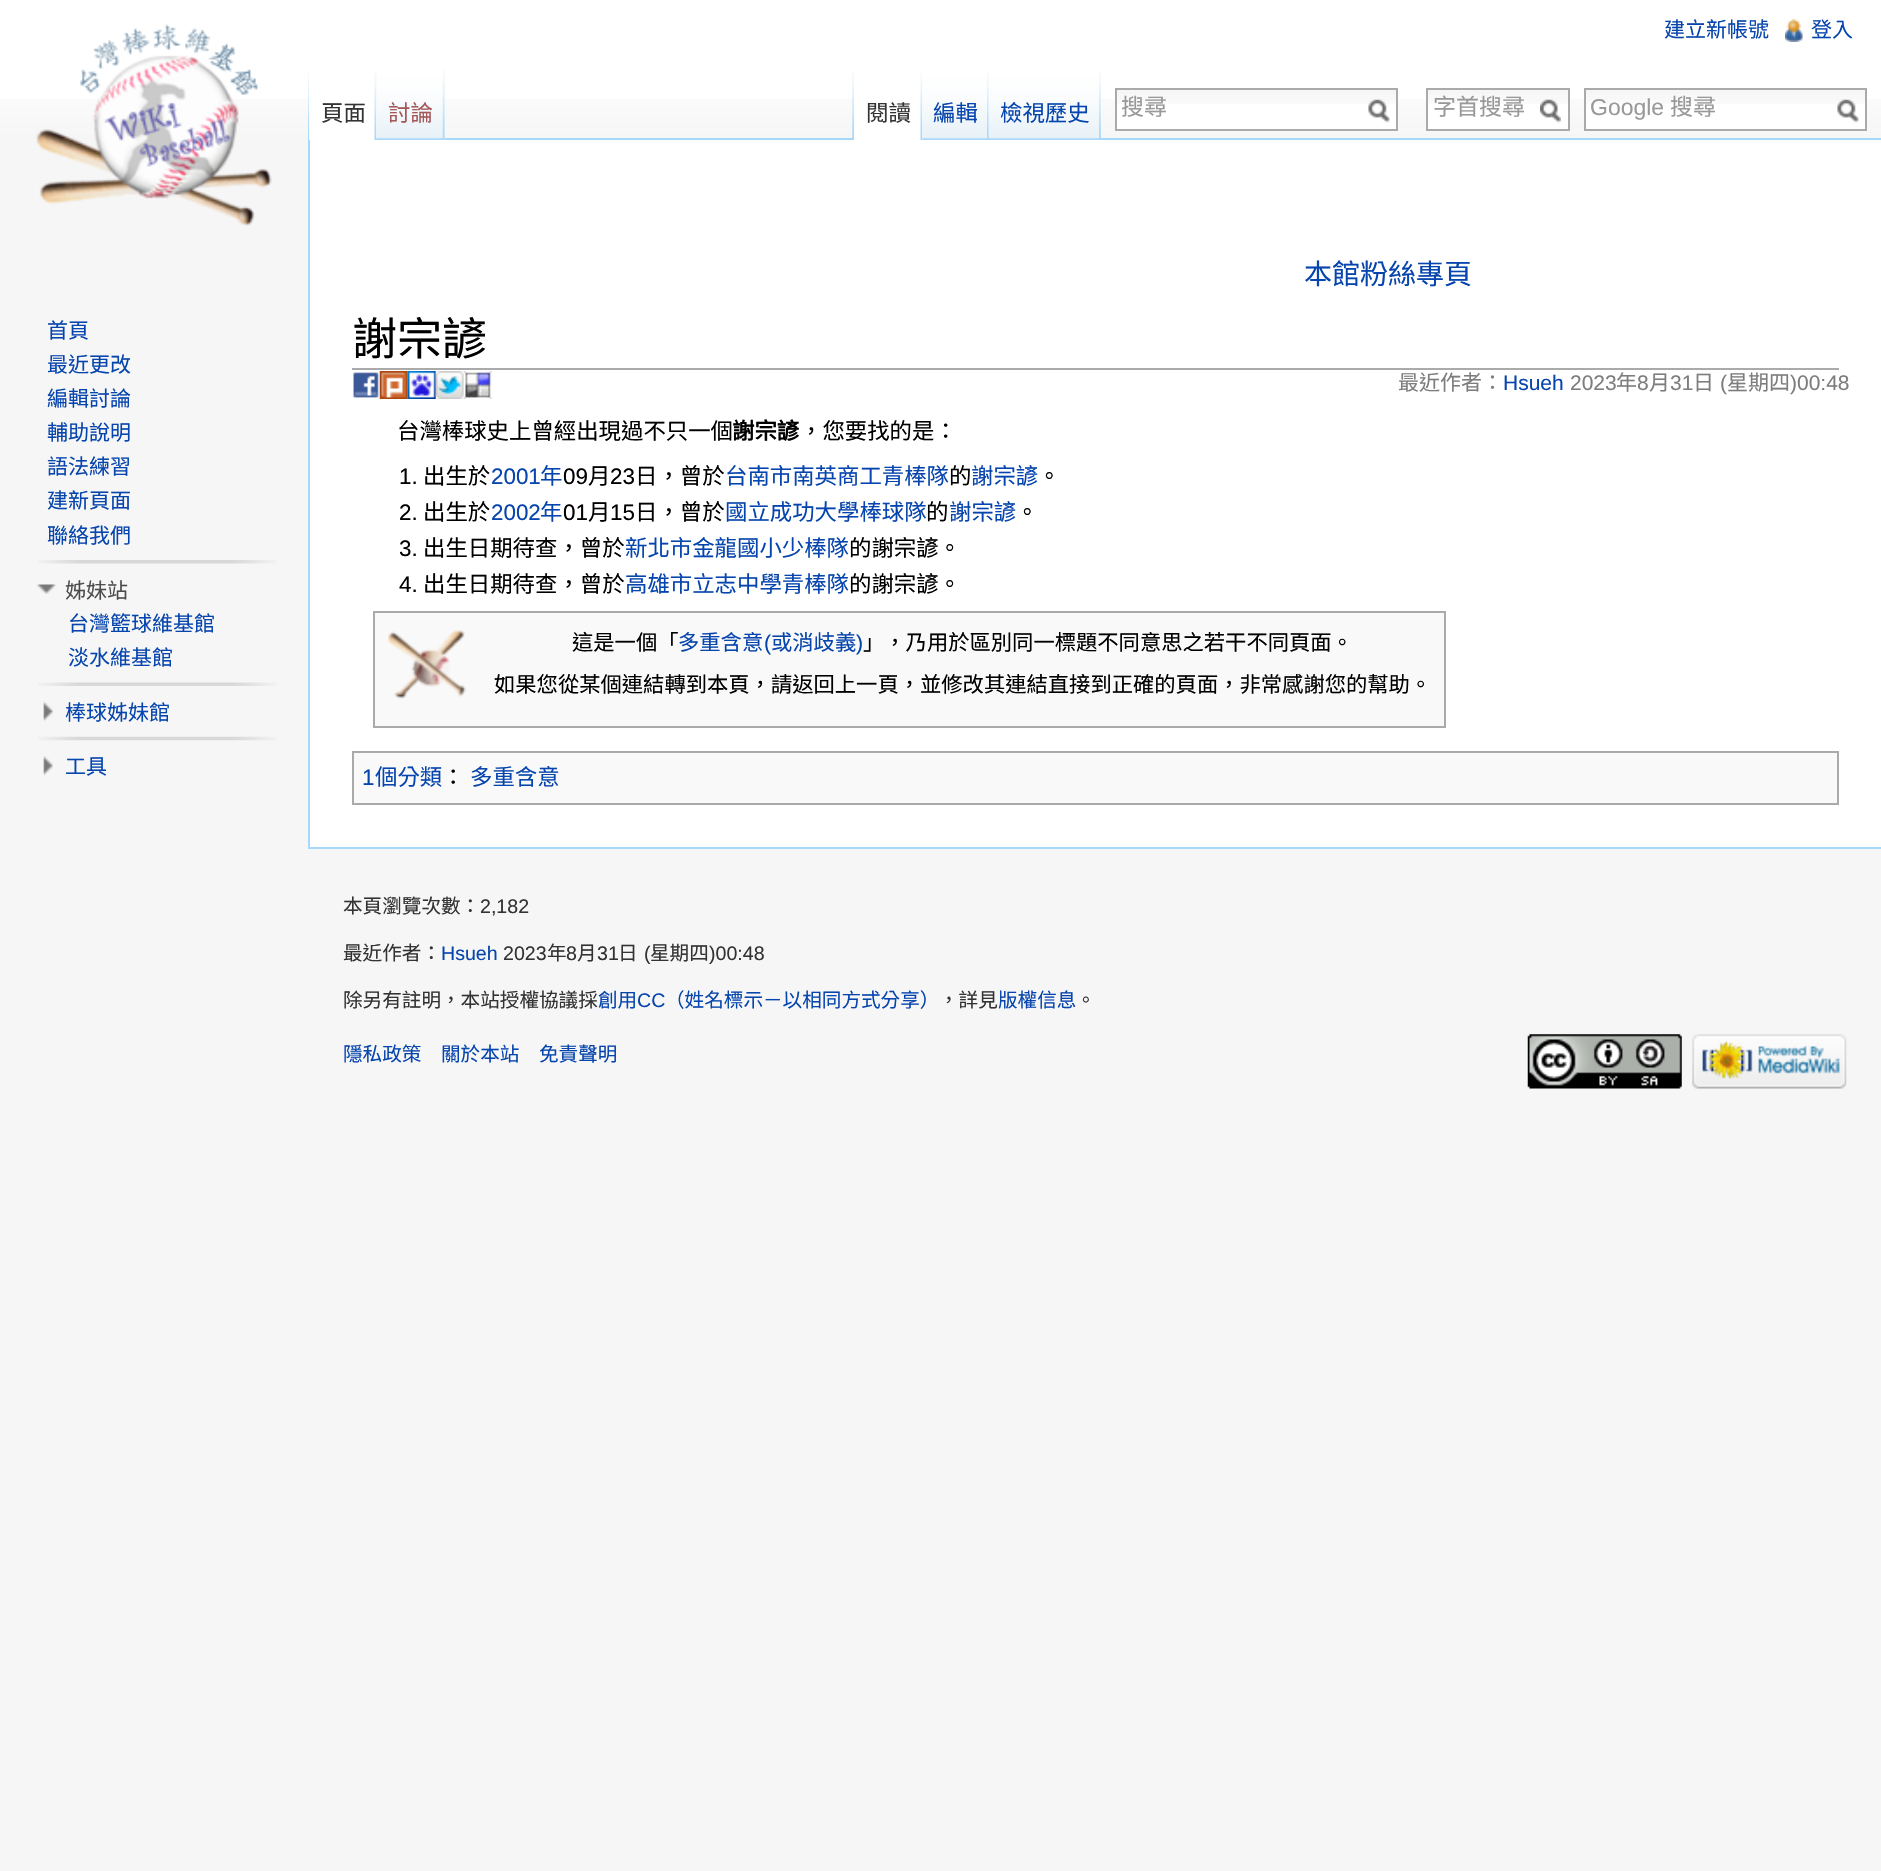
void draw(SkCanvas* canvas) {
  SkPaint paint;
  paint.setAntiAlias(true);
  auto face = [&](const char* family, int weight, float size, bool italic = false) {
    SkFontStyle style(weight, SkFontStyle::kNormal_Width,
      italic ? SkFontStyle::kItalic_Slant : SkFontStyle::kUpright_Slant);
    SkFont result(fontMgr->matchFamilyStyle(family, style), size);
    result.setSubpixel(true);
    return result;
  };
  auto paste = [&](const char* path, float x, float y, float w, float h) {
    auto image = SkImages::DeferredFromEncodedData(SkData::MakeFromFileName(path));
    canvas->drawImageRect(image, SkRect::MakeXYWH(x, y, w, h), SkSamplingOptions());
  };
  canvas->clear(0xfff6f6f6);
  paint.setColor(0xffffffff);
  canvas->drawRect(SkRect::MakeXYWH(0, 0, 1881, 99), paint);
  paste("img/1.png", 0, 99, 1881, 41);
  paste("img/2.png", 1785, 19, 18, 23);
  paste("img/3.png", 308, 70, 1, 68);
  {
    const struct { float x, y, w, h; SkColor color; } items[] = {
      {308, 847, 1573, 2, 0xffa7d7f9},
      {308, 138, 2, 711, 0xffa7d7f9},
      {309, 99, 67, 41, 0xffffffff},
    };
    for (auto [x, y, w, h, color] : items) {
      paint.setColor(color);
      canvas->drawRect(SkRect::MakeXYWH(x, y, w, h), paint);
    }
  }
  paste("img/4.png", 374, 71, 2, 69);
  paint.setColor(0xfff3f3f3);
  canvas->drawRect(SkRect::MakeXYWH(376, 70, 69, 70), paint);
  paste("img/5.png", 376, 70, 69, 70);
  paste("img/6.png", 442, 71, 3, 69);
  paste("img/7.png", 852, 70, 2, 68);
  paste("img/8.png", 1100, 70, 1, 68);
  paint.setColor(0xffa7d7f9);
  canvas->drawRect(SkRect::MakeXYWH(445, 138, 1436, 2), paint);
  paint.setColor(0xffffffff);
  canvas->drawRect(SkRect::MakeXYWH(854, 99, 69, 41), paint);
  paste("img/9.png", 920, 71, 3, 69);
  paste("img/10.png", 922, 70, 67, 70);
  paste("img/11.png", 987, 71, 2, 69);
  paste("img/12.png", 988, 70, 113, 70);
  paste("img/11.png", 1099, 71, 2, 69);
  canvas->drawRect(SkRect::MakeXYWH(1117, 104, 279, 25), paint);
  paste("img/13.png", 1117, 90, 279, 14);
  paint.setStroke(true);
  paint.setStrokeWidth(2);
  paint.setColor(0xffaaaaaa);
  canvas->drawRect(SkRect::MakeXYWH(1116, 89, 281, 41), paint);
  paste("img/14.png", 1368, 99, 22, 24);
  paint.setStroke(false);
  paint.setColor(0xffffffff);
  canvas->drawRect(SkRect::MakeXYWH(1428, 104, 140, 25), paint);
  paste("img/15.png", 1428, 90, 140, 14);
  paint.setStroke(true);
  paint.setColor(0xffaaaaaa);
  canvas->drawRect(SkRect::MakeXYWH(1427, 89, 142, 41), paint);
  paste("img/16.png", 1540, 99, 21, 24);
  paint.setStroke(false);
  paint.setColor(0xffffffff);
  canvas->drawRect(SkRect::MakeXYWH(1586, 104, 279, 25), paint);
  paste("img/13.png", 1586, 90, 279, 14);
  paint.setStroke(true);
  paint.setColor(0xffaaaaaa);
  canvas->drawRect(SkRect::MakeXYWH(1585, 89, 281, 41), paint);
  paste("img/14.png", 1837, 99, 22, 24);
  paste("img/17.png", 36, 24, 236, 202);
  paste("img/18.png", 38, 560, 238, 4);
  paste("img/19.png", 36, 584, 21, 10);
  paste("img/20.png", 38, 682, 238, 4);
  paste("img/21.png", 43, 701, 10, 21);
  paste("img/22.png", 38, 736, 238, 5);
  paste("img/23.png", 43, 756, 10, 20);
  paint.setStroke(false);
  paint.setColor(0xffffffff);
  canvas->drawRect(SkRect::MakeXYWH(310, 140, 1571, 707), paint);
  paint.setColor(0xffaaaaaa);
  canvas->drawRect(SkRect::MakeXYWH(352, 368, 1487, 2), paint);
  paste("img/24.png", 353, 372, 26, 26);
  paste("img/25.png", 379, 371, 29, 28);
  paste("img/26.png", 407, 371, 29, 28);
  paste("img/27.png", 435, 371, 29, 28);
  paste("img/28.png", 463, 371, 29, 28);
  paint.setColor(0xfff9f9f9);
  canvas->drawRect(SkRect::MakeXYWH(374, 612, 1071, 115), paint);
  paint.setStroke(true);
  paint.setColor(0xffaaaaaa);
  canvas->drawRect(SkRect::MakeXYWH(374, 612, 1071, 115), paint);
  paste("img/29.png", 388, 630, 78, 69);
  paint.setStroke(false);
  paint.setColor(0xfff9f9f9);
  canvas->drawRect(SkRect::MakeXYWH(353, 752, 1485, 52), paint);
  paint.setStroke(true);
  paint.setColor(0xffaaaaaa);
  canvas->drawRect(SkRect::MakeXYWH(353, 752, 1485, 52), paint);
  paste("img/30.png", 1527, 1034, 155, 55);
  paste("img/31.png", 1692, 1034, 155, 55);
  auto f0 = face("Noto Sans CJK TC", 400, 21);
  paint.setStroke(false);
  paint.setColor(0xff0645ad);
  canvas->drawString("建立新帳號", 1664, 37, f0, paint);
  canvas->drawString("登入", 1811, 37, f0, paint);
  auto f1 = face("Noto Sans CJK TC", 400, 22.4f);
  paint.setColor(0xff333333);
  canvas->drawString("頁面", 321, 121, f1, paint);
  paint.setColor(0xffa55858);
  canvas->drawString("討論", 388, 121, f1, paint);
  paint.setColor(0xff333333);
  canvas->drawString("閱讀", 866, 121, f1, paint);
  paint.setColor(0xff0645ad);
  canvas->drawString("編輯", 933, 121, f1, paint);
  canvas->drawString("檢視歷史", 1000, 121, f1, paint);
  auto f2 = face("Noto Sans CJK TC", 400, 23);
  paint.setColor(0xff999999);
  canvas->drawString("搜尋", 1121, 115, f2, paint);
  canvas->drawString("字首搜尋", 1433, 115, f2, paint);
  auto f3 = face("Liberation Sans", 400, 23);
  canvas->drawString("Google", 1590, 115, f3, paint);
  canvas->drawString("搜尋", 1670, 115, f2, paint);
  paint.setColor(0xff0645ad);
  {
    const struct { const char* s; float x, y; } items[] = {
      {"首頁", 47, 338},
      {"最近更改", 47, 372},
      {"編輯討論", 47, 406},
      {"輔助說明", 47, 440},
      {"語法練習", 47, 474},
      {"建新頁面", 47, 508},
      {"聯絡我們", 47, 543},
    };
    for (auto [s, x, y] : items) {
      canvas->drawString(s, x, y, f0, paint);
    }
  }
  paint.setColor(0xff4d4d4d);
  canvas->drawString("姊妹站", 65, 598, f0, paint);
  paint.setColor(0xff0645ad);
  {
    const struct { const char* s; float x, y; } items[] = {
      {"台灣籃球維基館", 68, 631},
      {"淡水維基館", 68, 665},
      {"棒球姊妹館", 65, 720},
      {"工具", 65, 774},
    };
    for (auto [s, x, y] : items) {
      canvas->drawString(s, x, y, f0, paint);
    }
  }
  auto f4 = face("Noto Sans CJK TC", 400, 28);
  canvas->drawString("本館粉絲專頁", 1304, 284, f4, paint);
  auto f5 = face("Noto Sans CJK TC", 400, 45);
  paint.setColor(0xff000000);
  canvas->drawString("謝宗諺", 352, 355, f5, paint);
  paint.setColor(0xff7d7d7d);
  canvas->drawString("最近作者：", 1398, 390, f0, paint);
  auto f6 = face("Liberation Sans", 400, 21);
  paint.setColor(0xff0645ad);
  canvas->drawString("Hsueh", 1503, 390, f6, paint);
  paint.setColor(0xff7d7d7d);
  canvas->drawString("2023", 1570, 390, f6, paint);
  canvas->drawString("年", 1616, 390, f0, paint);
  canvas->drawString("8", 1637, 390, f6, paint);
  canvas->drawString("月", 1649, 390, f0, paint);
  canvas->drawString("31", 1670, 390, f6, paint);
  canvas->drawString("日", 1693, 390, f0, paint);
  canvas->drawString("(", 1720, 390, f6, paint);
  canvas->drawString("星期四", 1727, 390, f0, paint);
  canvas->drawString(")00:48", 1790, 390, f6, paint);
  paint.setColor(0xff000000);
  canvas->drawString("台灣棒球史上曾經出現過不只一個", 397, 439, f1, paint);
  auto f7 = face("Noto Sans CJK TC", 700, 22.4f);
  canvas->drawString("謝宗諺", 732, 439, f7, paint);
  canvas->drawString("，您要找的是：", 800, 439, f1, paint);
  auto f8 = face("Liberation Sans", 400, 22.4f);
  canvas->drawString("1.", 399, 484, f8, paint);
  canvas->drawString("出生於", 423, 484, f1, paint);
  paint.setColor(0xff0645ad);
  canvas->drawString("2001", 491, 484, f8, paint);
  canvas->drawString("年", 540, 484, f1, paint);
  paint.setColor(0xff000000);
  canvas->drawString("09", 563, 484, f8, paint);
  canvas->drawString("月", 588, 484, f1, paint);
  canvas->drawString("23", 610, 484, f8, paint);
  canvas->drawString("日，曾於", 635, 484, f1, paint);
  paint.setColor(0xff0645ad);
  canvas->drawString("台南市南英商工青棒隊", 725, 484, f1, paint);
  paint.setColor(0xff000000);
  canvas->drawString("的", 949, 484, f1, paint);
  paint.setColor(0xff0645ad);
  canvas->drawString("謝宗諺", 971, 484, f1, paint);
  paint.setColor(0xff000000);
  canvas->drawString("。", 1038, 484, f1, paint);
  canvas->drawString("2.", 399, 520, f8, paint);
  canvas->drawString("出生於", 423, 520, f1, paint);
  paint.setColor(0xff0645ad);
  canvas->drawString("2002", 491, 520, f8, paint);
  canvas->drawString("年", 540, 520, f1, paint);
  paint.setColor(0xff000000);
  canvas->drawString("01", 563, 520, f8, paint);
  canvas->drawString("月", 588, 520, f1, paint);
  canvas->drawString("15", 610, 520, f8, paint);
  canvas->drawString("日，曾於", 635, 520, f1, paint);
  paint.setColor(0xff0645ad);
  canvas->drawString("國立成功大學棒球隊", 725, 520, f1, paint);
  paint.setColor(0xff000000);
  canvas->drawString("的", 926, 520, f1, paint);
  paint.setColor(0xff0645ad);
  canvas->drawString("謝宗諺", 949, 520, f1, paint);
  paint.setColor(0xff000000);
  canvas->drawString("。", 1016, 520, f1, paint);
  canvas->drawString("3.", 399, 556, f8, paint);
  canvas->drawString("出生日期待查，曾於", 423, 556, f1, paint);
  paint.setColor(0xff0645ad);
  canvas->drawString("新北市金龍國小少棒隊", 625, 556, f1, paint);
  paint.setColor(0xff000000);
  canvas->drawString("的謝宗諺。", 849, 556, f1, paint);
  canvas->drawString("4.", 399, 592, f8, paint);
  canvas->drawString("出生日期待查，曾於", 423, 592, f1, paint);
  paint.setColor(0xff0645ad);
  canvas->drawString("高雄市立志中學青棒隊", 625, 592, f1, paint);
  paint.setColor(0xff000000);
  canvas->drawString("的謝宗諺。", 849, 592, f1, paint);
  auto f9 = face("Noto Sans CJK TC", 400, 21.3f);
  canvas->drawString("這是一個「", 572, 650, f9, paint);
  paint.setColor(0xff0645ad);
  canvas->drawString("多重含意", 678, 650, f9, paint);
  auto f10 = face("Liberation Sans", 400, 21.3f);
  canvas->drawString("(", 764, 650, f10, paint);
  canvas->drawString("或消歧義", 771, 650, f9, paint);
  canvas->drawString(")", 856, 650, f10, paint);
  paint.setColor(0xff000000);
  canvas->drawString("」，乃用於區別同一標題不同意思之若干不同頁面。", 863, 650, f9, paint);
  canvas->drawString("如果您從某個連結轉到本頁，請返回上一頁，並修改其連結直接到正確的頁面，非常感謝您的幫助。", 494, 692, f9, paint);
  paint.setColor(0xff0645ad);
  canvas->drawString("1", 362, 785, f8, paint);
  canvas->drawString("個分類", 375, 785, f1, paint);
  paint.setColor(0xff000000);
  canvas->drawString("：", 442, 785, f1, paint);
  paint.setColor(0xff0645ad);
  canvas->drawString("多重含意", 470, 785, f1, paint);
  auto f11 = face("Noto Sans CJK TC", 400, 19.6f);
  paint.setColor(0xff333333);
  canvas->drawString("本頁瀏覽次數：", 343, 913, f11, paint);
  auto f12 = face("Liberation Sans", 400, 19.6f);
  canvas->drawString("2,182", 480, 913, f12, paint);
  canvas->drawString("最近作者：", 343, 960, f11, paint);
  paint.setColor(0xff0645ad);
  canvas->drawString("Hsueh", 441, 960, f12, paint);
  paint.setColor(0xff333333);
  canvas->drawString("2023", 503, 960, f12, paint);
  canvas->drawString("年", 547, 960, f11, paint);
  canvas->drawString("8", 566, 960, f12, paint);
  canvas->drawString("月", 577, 960, f11, paint);
  canvas->drawString("31", 597, 960, f12, paint);
  canvas->drawString("日", 618, 960, f11, paint);
  canvas->drawString("(", 644, 960, f12, paint);
  canvas->drawString("星期四", 650, 960, f11, paint);
  canvas->drawString(")00:48", 709, 960, f12, paint);
  canvas->drawString("除另有註明，本站授權協議採", 343, 1007, f11, paint);
  paint.setColor(0xff0645ad);
  canvas->drawString("創用", 598, 1007, f11, paint);
  canvas->drawString("CC", 637, 1007, f12, paint);
  canvas->drawString("（姓名標示－以相同方式分享）", 665, 1007, f11, paint);
  paint.setColor(0xff333333);
  canvas->drawString("，詳見", 939, 1007, f11, paint);
  paint.setColor(0xff0645ad);
  canvas->drawString("版權信息", 998, 1007, f11, paint);
  paint.setColor(0xff333333);
  canvas->drawString("。", 1076, 1007, f11, paint);
  paint.setColor(0xff0645ad);
  {
    const struct { const char* s; float x, y; } items[] = {
      {"隱私政策", 343, 1061},
      {"關於本站", 441, 1061},
      {"免責聲明", 539, 1061},
    };
    for (auto [s, x, y] : items) {
      canvas->drawString(s, x, y, f11, paint);
    }
  }
}
